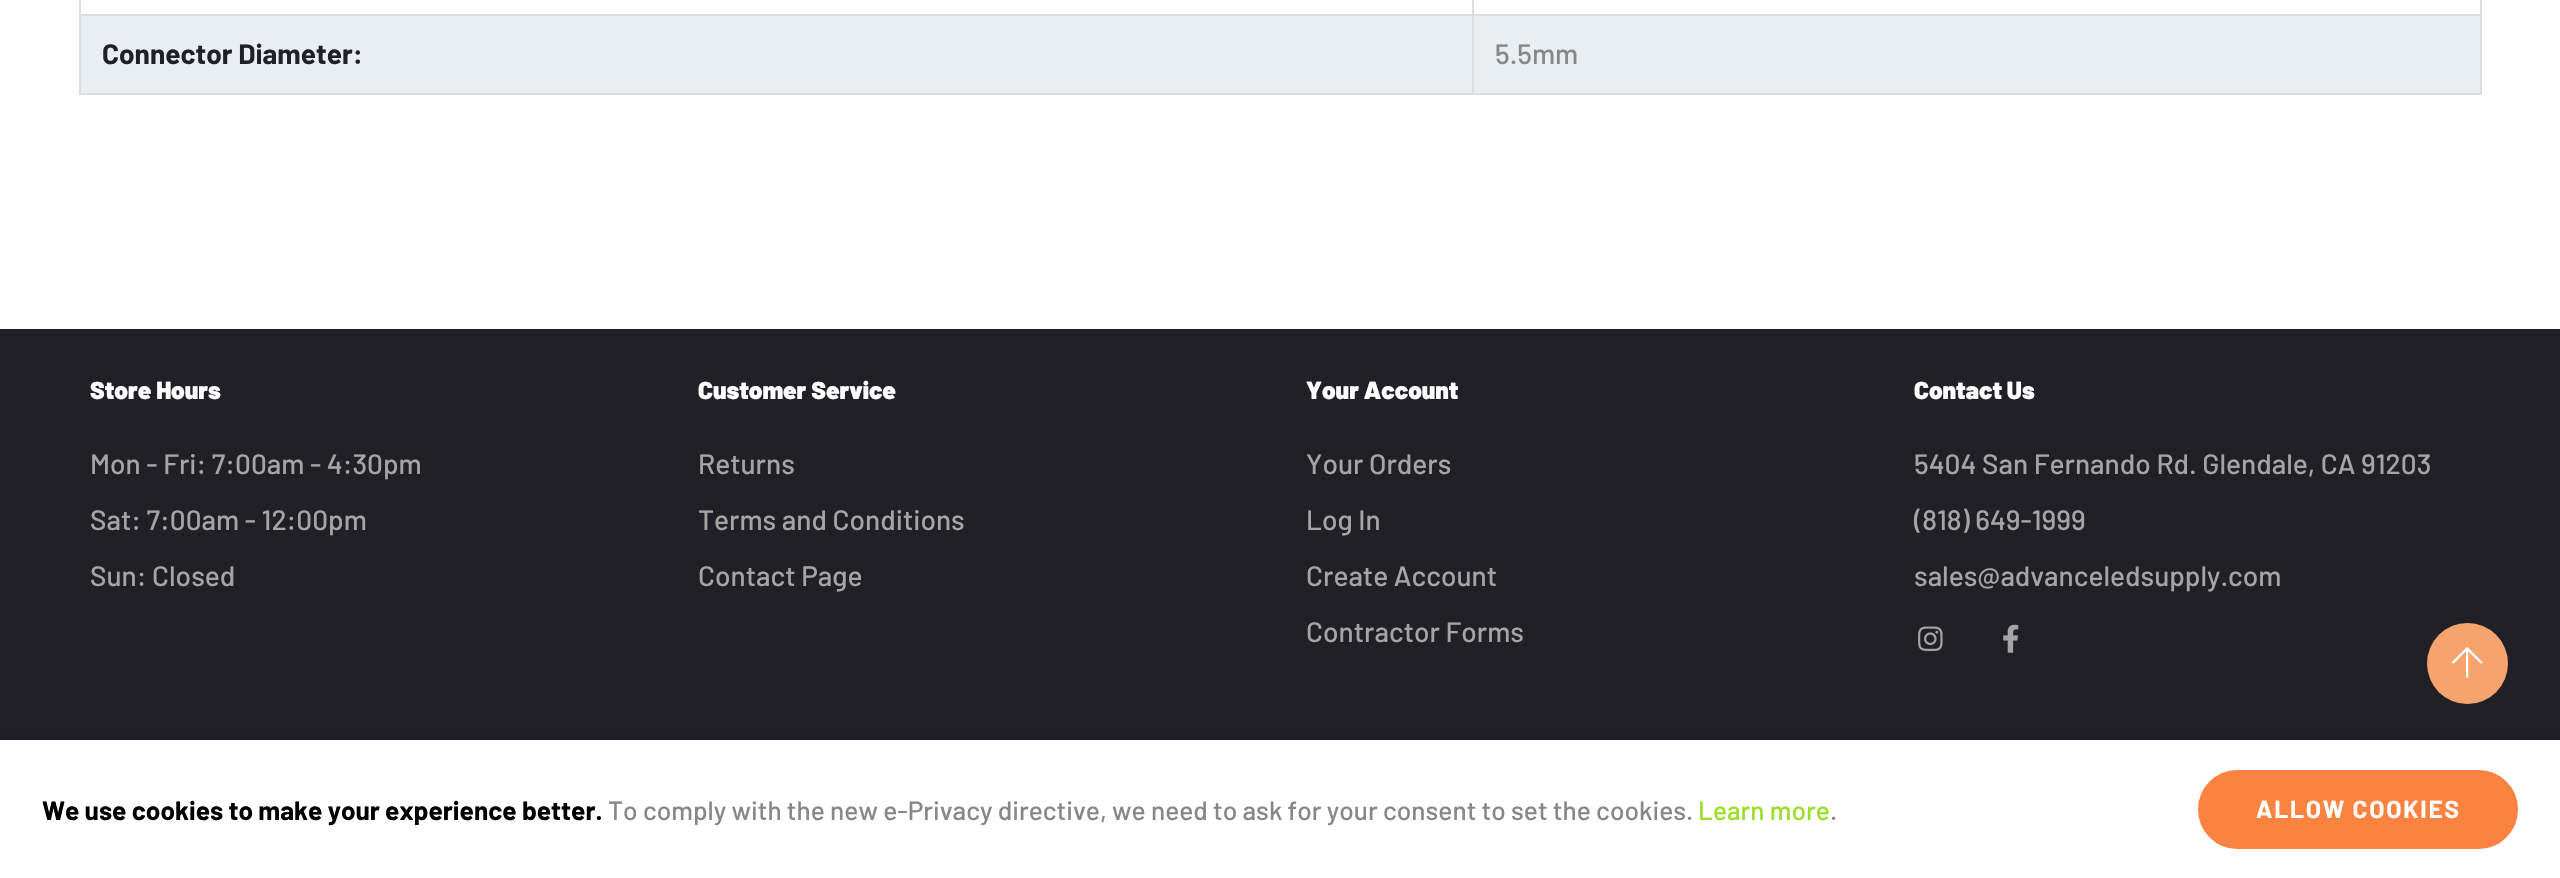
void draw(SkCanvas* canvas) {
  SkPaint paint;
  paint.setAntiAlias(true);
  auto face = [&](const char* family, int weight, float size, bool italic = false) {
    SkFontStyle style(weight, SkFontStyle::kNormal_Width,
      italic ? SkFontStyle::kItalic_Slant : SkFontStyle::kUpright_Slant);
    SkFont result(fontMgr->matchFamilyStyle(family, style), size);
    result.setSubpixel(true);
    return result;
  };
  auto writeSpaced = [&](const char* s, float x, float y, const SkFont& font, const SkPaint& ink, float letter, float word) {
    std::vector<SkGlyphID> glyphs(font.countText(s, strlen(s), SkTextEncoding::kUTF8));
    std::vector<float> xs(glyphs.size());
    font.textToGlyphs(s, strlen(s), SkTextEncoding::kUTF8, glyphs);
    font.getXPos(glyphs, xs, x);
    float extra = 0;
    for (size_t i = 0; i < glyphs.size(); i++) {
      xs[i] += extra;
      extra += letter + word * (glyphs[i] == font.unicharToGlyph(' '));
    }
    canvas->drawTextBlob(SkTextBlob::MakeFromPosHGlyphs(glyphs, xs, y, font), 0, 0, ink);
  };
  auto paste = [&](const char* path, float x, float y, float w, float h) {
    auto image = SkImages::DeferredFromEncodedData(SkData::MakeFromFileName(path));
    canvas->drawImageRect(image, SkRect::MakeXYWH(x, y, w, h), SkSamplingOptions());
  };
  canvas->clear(0xffffffff);
  {
    const struct { float x, y, w, h; SkColor color; } items[] = {
      {1472, 14, 1010, 2, 0xffdddddd},
      {81, 16, 2399, 77, 0xffe9eef2},
      {2480, 0, 2, 95, 0xffdddddd},
      {1472, 93, 1010, 2, 0xffdddddd},
      {1472, 14, 2, 81, 0xffdddddd},
      {79, 14, 1395, 2, 0xffdddddd},
      {1472, 0, 2, 16, 0xffdddddd},
      {79, 93, 1395, 2, 0xffdddddd},
      {79, 0, 2, 95, 0xffdddddd},
      {0, 329, 2560, 411, 0xff212027},
    };
    for (auto [x, y, w, h, color] : items) {
      paint.setColor(color);
      canvas->drawRect(SkRect::MakeXYWH(x, y, w, h), paint);
    }
  }
  paste("img/1.png", 1918, 626, 25, 25);
  paste("img/2.png", 2003, 624, 16, 29);
  paint.setColor(0xfff7a36e);
  canvas->drawCircle(2467.5f, 663.5f, 40.5f, paint);
  paste("img/3.png", 2451, 647, 32, 31);
  paint.setColor(0x24000000);
  paint.setMaskFilter(SkMaskFilter::MakeBlur(kNormal_SkBlurStyle, 8));
  canvas->drawRect(SkRect::MakeXYWH(0, 740, 2560, 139), paint);
  paint.setMaskFilter(nullptr);
  paint.setColor(0xffffffff);
  canvas->drawRect(SkRect::MakeXYWH(0, 740, 2560, 138), paint);
  paint.setColor(0xfffb8342);
  canvas->drawRoundRect(SkRect::MakeXYWH(2199, 771, 318, 77), 38.5f, 38.5f, paint);
  paint.setStroke(true);
  paint.setStrokeWidth(2);
  canvas->drawRoundRect(SkRect::MakeXYWH(2199, 771, 318, 77), 38.5f, 38.5f, paint);
  auto f0 = face("Barlow", 700, 28);
  paint.setStroke(false);
  paint.setColor(0xff212027);
  canvas->drawString("Connector Diameter:", 102, 64, f0, paint);
  auto f1 = face("Barlow", 500, 28);
  paint.setColor(0xff878787);
  canvas->drawString("5.5mm", 1495, 64, f1, paint);
  auto f2 = face("Barlow", 900, 24.5f);
  paint.setColor(0xffffffff);
  canvas->drawString("Store Hours", 90, 399, f2, paint);
  paint.setColor(0xffa5a5a5);
  {
    const struct { const char* s; float x, y; } items[] = {
      {"Mon - Fri: 7:00am - 4:30pm", 90, 474},
      {"Sat: 7:00am - 12:00pm", 90, 530},
      {"Sun: Closed", 90, 586},
    };
    for (auto [s, x, y] : items) {
      canvas->drawString(s, x, y, f1, paint);
    }
  }
  paint.setColor(0xffffffff);
  canvas->drawString("Customer Service", 698, 399, f2, paint);
  paint.setColor(0xffa5a5a5);
  {
    const struct { const char* s; float x, y; } items[] = {
      {"Returns", 698, 474},
      {"Terms and Conditions", 698, 530},
      {"Contact Page", 698, 586},
    };
    for (auto [s, x, y] : items) {
      canvas->drawString(s, x, y, f1, paint);
    }
  }
  paint.setColor(0xffffffff);
  canvas->drawString("Your Account", 1306, 399, f2, paint);
  paint.setColor(0xffa5a5a5);
  {
    const struct { const char* s; float x, y; } items[] = {
      {"Your Orders", 1306, 474},
      {"Log In", 1306, 530},
      {"Create Account", 1306, 586},
      {"Contractor Forms", 1306, 642},
    };
    for (auto [s, x, y] : items) {
      canvas->drawString(s, x, y, f1, paint);
    }
  }
  paint.setColor(0xffffffff);
  canvas->drawString("Contact Us", 1914, 399, f2, paint);
  paint.setColor(0xffa5a5a5);
  {
    const struct { const char* s; float x, y; } items[] = {
      {"5404 San Fernando Rd. Glendale, CA 91203", 1914, 474},
      {"(818) 649-1999", 1914, 530},
      {"sales@advanceledsupply.com", 1914, 586},
    };
    for (auto [s, x, y] : items) {
      canvas->drawString(s, x, y, f1, paint);
    }
  }
  auto f3 = face("Barlow", 700, 26.25f);
  paint.setColor(0xff000000);
  canvas->drawString("We use cookies to make your experience better.", 42, 820, f3, paint);
  auto f4 = face("Barlow", 500, 26.25f);
  paint.setColor(0xff878787);
  canvas->drawString("To comply with the new e-Privacy directive, we need to ask for your consent to set the cookies.", 608, 820, f4, paint);
  paint.setColor(0xff9ade25);
  canvas->drawString("Learn more", 1698, 820, f4, paint);
  paint.setColor(0xff878787);
  canvas->drawString(".", 1830, 820, f4, paint);
  auto f5 = face("Barlow", 700, 24.5f);
  paint.setColor(0xffffffff);
  writeSpaced("ALLOW COOKIES", 2256, 818, f5, paint, 1.75f, 0);
}
